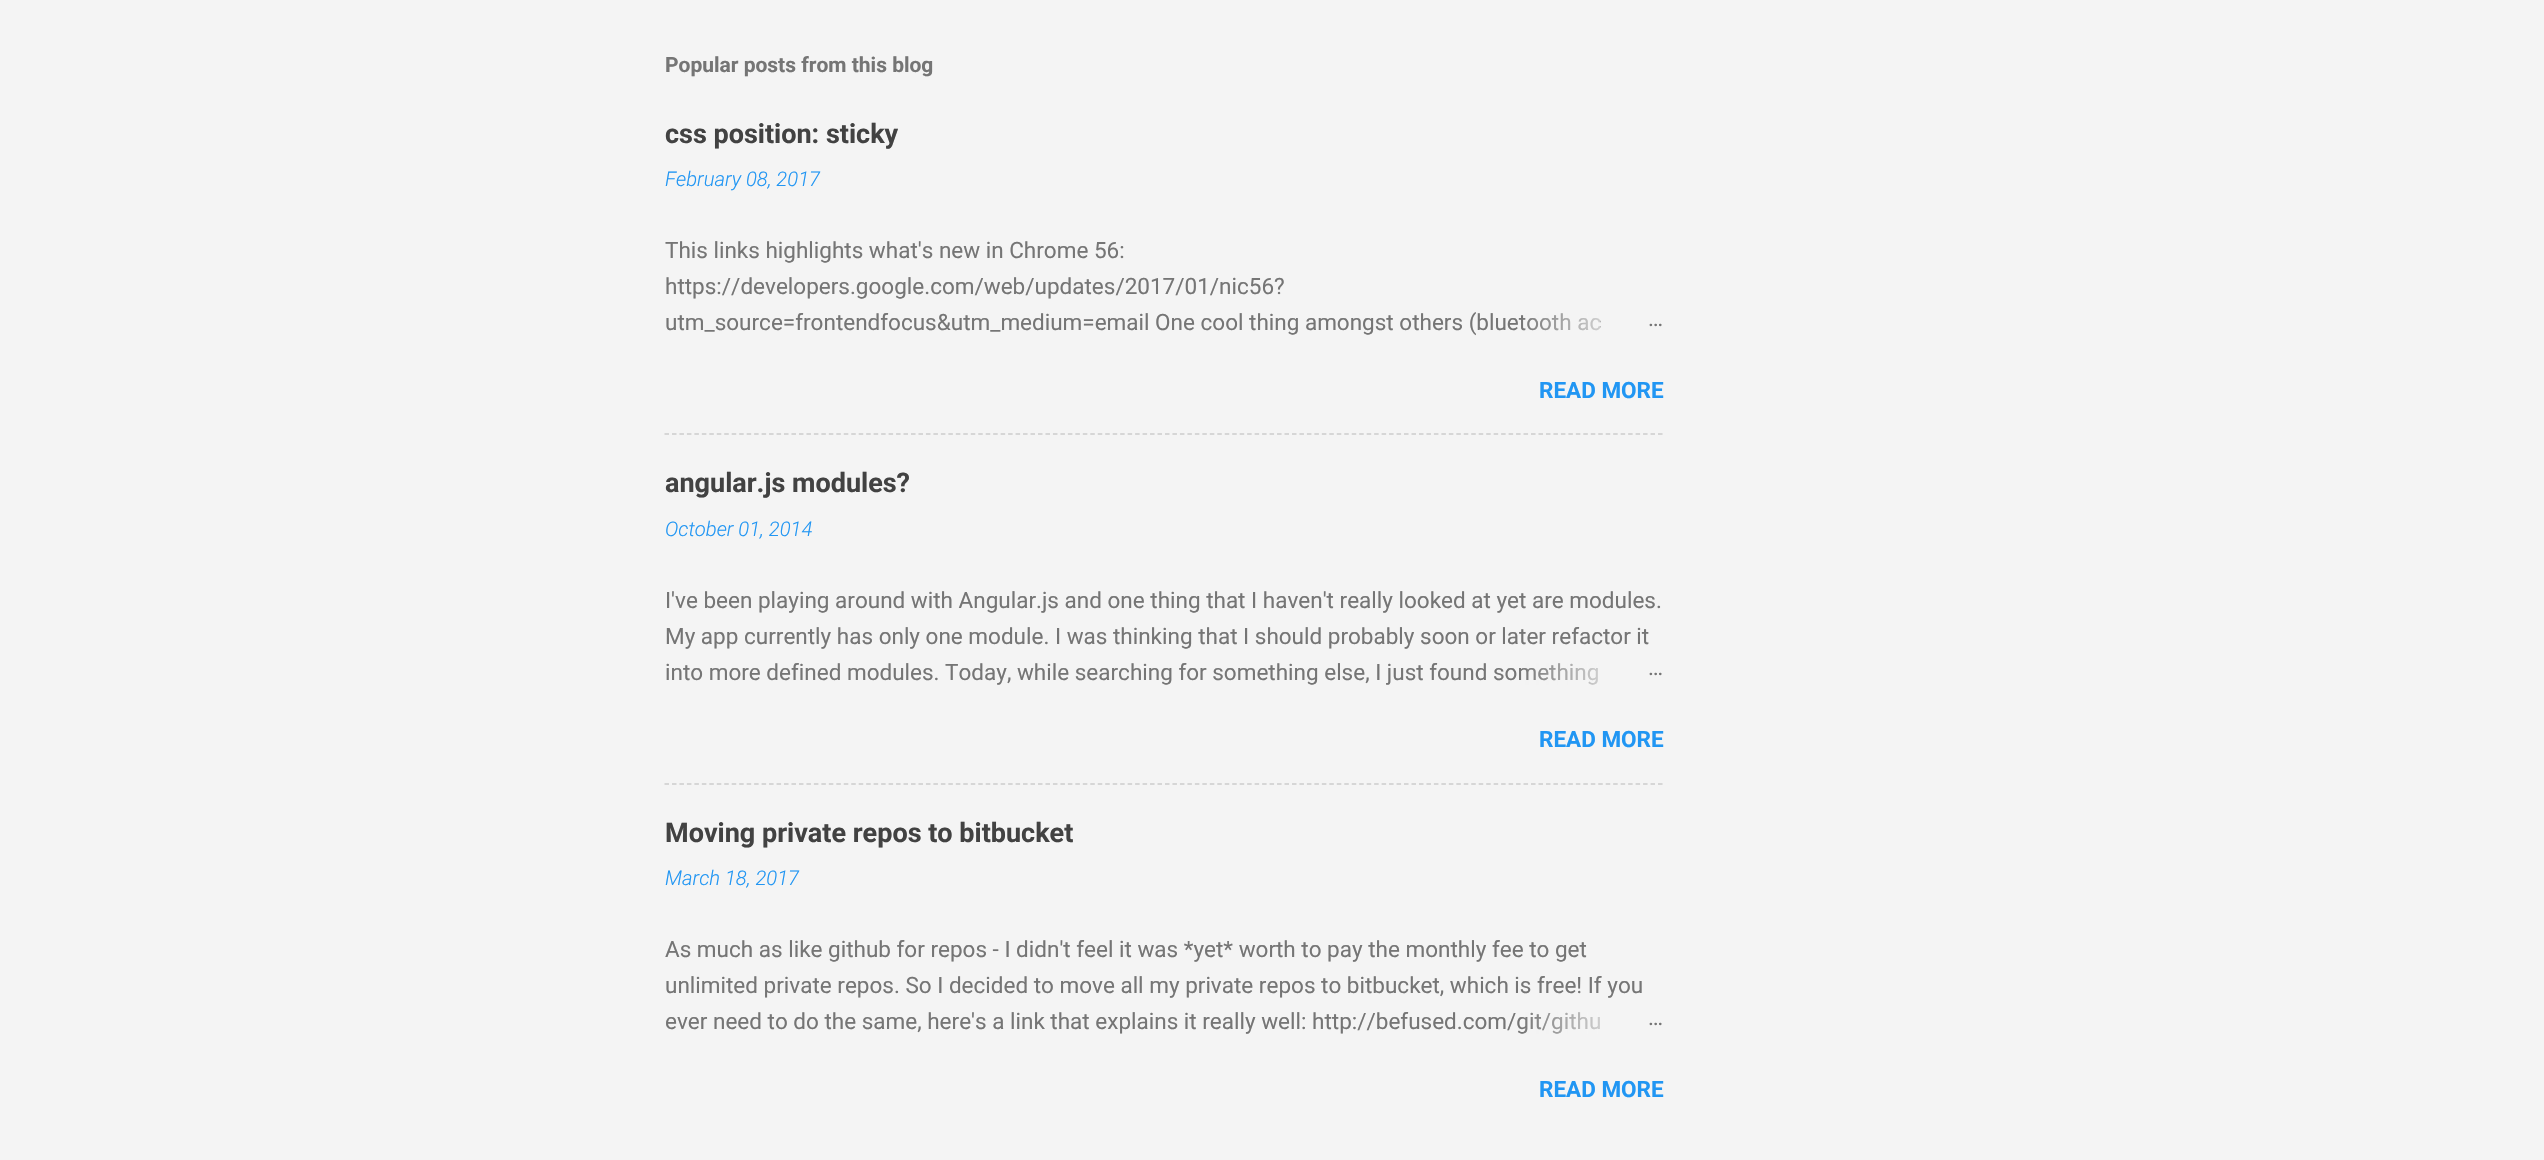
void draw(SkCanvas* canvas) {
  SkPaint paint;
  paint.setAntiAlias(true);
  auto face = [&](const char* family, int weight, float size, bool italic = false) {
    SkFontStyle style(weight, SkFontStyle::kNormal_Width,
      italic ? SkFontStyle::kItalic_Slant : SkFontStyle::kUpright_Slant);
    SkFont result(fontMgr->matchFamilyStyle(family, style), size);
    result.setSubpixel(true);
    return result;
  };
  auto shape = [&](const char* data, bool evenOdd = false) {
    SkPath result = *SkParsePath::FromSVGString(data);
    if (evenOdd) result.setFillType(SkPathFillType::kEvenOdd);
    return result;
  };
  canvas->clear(0xfff4f4f4);
  paint.setStroke(true);
  paint.setStrokeWidth(1.5f);
  paint.setColor(0xffcccccc);
  paint.setPathEffect(SkDashPathEffect::Make({{4.5f, 2.97f}}, 0));
  canvas->drawPath(shape("M664.5 434H1663.5"), paint);
  paint.setPathEffect(nullptr);
  paint.setPathEffect(SkDashPathEffect::Make({{4.5f, 2.97f}}, 0));
  canvas->drawPath(shape("M664.5 784H1663.5"), paint);
  paint.setPathEffect(nullptr);
  auto f0 = face("Roboto", 700, 21);
  paint.setStroke(false);
  paint.setColor(0xff757575);
  canvas->drawString("Popular posts from this blog", 665, 72, f0, paint);
  auto f1 = face("Roboto", 700, 27);
  paint.setColor(0xff424242);
  canvas->drawString("css position: sticky", 665, 143, f1, paint);
  auto f2 = face("Roboto", 300, 20.25f, true);
  paint.setColor(0xff2196f3);
  canvas->drawString("February 08, 2017", 665, 186, f2, paint);
  auto f3 = face("Roboto", 400, 22.5f);
  paint.setColor(0xff757575);
  {
    const struct { const char* s; float x, y; } items[] = {
      {"This links highlights what's new in Chrome 56:", 665, 258},
      {"https://developers.google.com/web/updates/2017/01/nic56?", 665, 294},
      {"utm_source=frontendfocus&utm_medium=email One cool thing amongst others (bluetooth ac", 665, 330},
    };
    for (auto [s, x, y] : items) {
      canvas->drawString(s, x, y, f3, paint);
    }
  }
  {
    const SkColor colors[] = {0xfff4f4f4, 0xfff4f4f4, 0x00f4f4f4};
    const float stops[] = {0, 0.2f, 1};
    const SkPoint ends[] = {{1664, 323}, {1520, 323}};
    paint.setShader(SkGradientShader::MakeLinear(ends, colors, stops, 3, SkTileMode::kClamp));
    paint.setAlpha(255);
  }
  canvas->drawRect(SkRect::MakeXYWH(1523, 313, 77, 18), paint);
  paint.setShader(nullptr);
  paint.setColor(0xff757575);
  canvas->drawString("…", 1648, 326, f3, paint);
  auto f4 = face("Roboto", 700, 22.5f);
  paint.setColor(0xff2196f3);
  canvas->drawString("READ MORE", 1539, 398, f4, paint);
  paint.setColor(0xff424242);
  canvas->drawString("angular.js modules?", 665, 492, f1, paint);
  paint.setColor(0xff2196f3);
  canvas->drawString("October 01, 2014", 665, 536, f2, paint);
  paint.setColor(0xff757575);
  {
    const struct { const char* s; float x, y; } items[] = {
      {"I've been playing around with Angular.js and one thing that I haven't really looked at yet are modules.", 665, 608},
      {"My app currently has only one module. I was thinking that I should probably soon or later refactor it", 665, 644},
      {"into more defined modules. Today, while searching for something else, I just found something", 665, 680},
    };
    for (auto [s, x, y] : items) {
      canvas->drawString(s, x, y, f3, paint);
    }
  }
  {
    const SkColor colors[] = {0xfff4f4f4, 0xfff4f4f4, 0x00f4f4f4};
    const float stops[] = {0, 0.2f, 1};
    const SkPoint ends[] = {{1664, 672}, {1520, 672}};
    paint.setShader(SkGradientShader::MakeLinear(ends, colors, stops, 3, SkTileMode::kClamp));
    paint.setAlpha(255);
  }
  canvas->drawRect(SkRect::MakeXYWH(1523, 663, 75, 22), paint);
  paint.setShader(nullptr);
  paint.setColor(0xff757575);
  canvas->drawString("…", 1648, 675, f3, paint);
  paint.setColor(0xff2196f3);
  canvas->drawString("READ MORE", 1539, 747, f4, paint);
  paint.setColor(0xff424242);
  canvas->drawString("Moving private repos to bitbucket", 665, 842, f1, paint);
  paint.setColor(0xff2196f3);
  canvas->drawString("March 18, 2017", 665, 885, f2, paint);
  paint.setColor(0xff757575);
  {
    const struct { const char* s; float x, y; } items[] = {
      {"As much as like github for repos - I didn't feel it was *yet* worth to pay the monthly fee to get", 665, 957},
      {"unlimited private repos. So I decided to move all my private repos to bitbucket, which is free! If you", 665, 993},
      {"ever need to do the same, here's a link that explains it really well: http://befused.com/git/githu", 665, 1029},
    };
    for (auto [s, x, y] : items) {
      canvas->drawString(s, x, y, f3, paint);
    }
  }
  {
    const SkColor colors[] = {0xfff4f4f4, 0xfff4f4f4, 0x00f4f4f4};
    const float stops[] = {0, 0.2f, 1};
    const SkPoint ends[] = {{1664, 1022}, {1520, 1022}};
    paint.setShader(SkGradientShader::MakeLinear(ends, colors, stops, 3, SkTileMode::kClamp));
    paint.setAlpha(255);
  }
  canvas->drawRect(SkRect::MakeXYWH(1523, 1012, 77, 22), paint);
  paint.setShader(nullptr);
  paint.setColor(0xff757575);
  canvas->drawString("…", 1648, 1025, f3, paint);
  paint.setColor(0xff2196f3);
  canvas->drawString("READ MORE", 1539, 1097, f4, paint);
}
